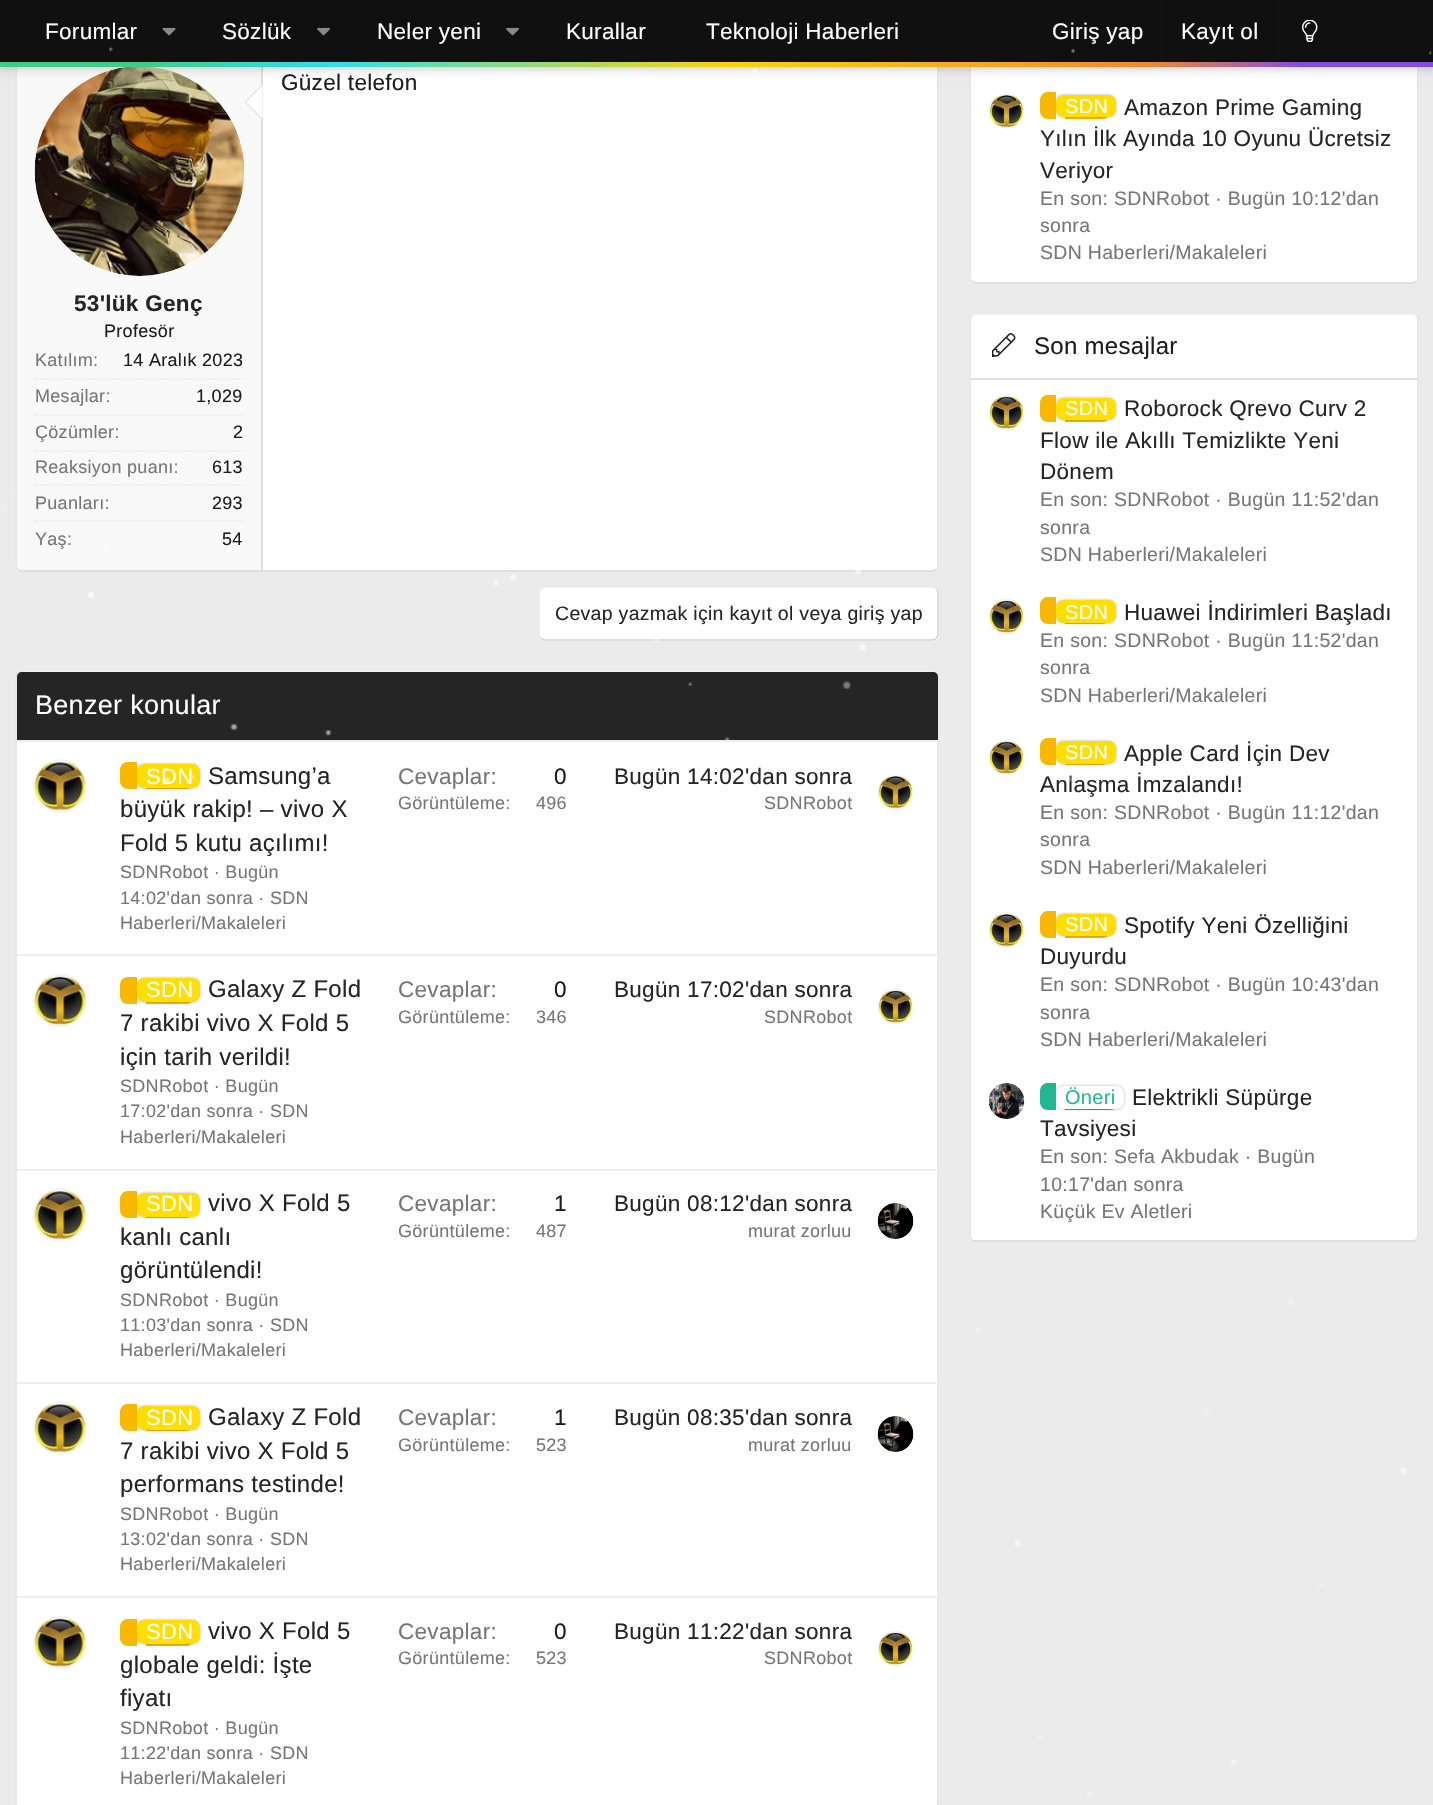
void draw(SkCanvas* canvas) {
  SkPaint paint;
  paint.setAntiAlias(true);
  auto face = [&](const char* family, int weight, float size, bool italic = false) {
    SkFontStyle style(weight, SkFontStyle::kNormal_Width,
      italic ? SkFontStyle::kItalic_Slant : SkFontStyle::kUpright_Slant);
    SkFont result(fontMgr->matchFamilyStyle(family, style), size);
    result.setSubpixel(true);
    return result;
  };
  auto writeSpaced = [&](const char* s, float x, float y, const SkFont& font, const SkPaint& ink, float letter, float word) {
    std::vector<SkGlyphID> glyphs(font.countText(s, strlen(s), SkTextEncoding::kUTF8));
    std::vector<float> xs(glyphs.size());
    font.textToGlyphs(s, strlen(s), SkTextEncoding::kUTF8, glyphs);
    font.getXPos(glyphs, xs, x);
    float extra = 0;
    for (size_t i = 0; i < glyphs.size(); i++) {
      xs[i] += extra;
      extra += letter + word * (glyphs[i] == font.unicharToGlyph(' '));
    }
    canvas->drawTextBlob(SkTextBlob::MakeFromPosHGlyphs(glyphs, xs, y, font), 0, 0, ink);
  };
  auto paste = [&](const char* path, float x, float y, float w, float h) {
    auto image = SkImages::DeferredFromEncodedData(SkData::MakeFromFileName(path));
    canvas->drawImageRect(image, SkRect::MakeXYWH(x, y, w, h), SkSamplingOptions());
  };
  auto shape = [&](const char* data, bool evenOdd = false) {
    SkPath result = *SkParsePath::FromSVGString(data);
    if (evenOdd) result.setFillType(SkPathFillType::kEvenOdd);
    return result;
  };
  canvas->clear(0xffebebeb);
  paint.setColor(0xffffffff);
  canvas->drawRoundRect(SkRect::MakeXYWH(15, -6, 924, 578), 6, 6, paint);
  paint.setStroke(true);
  paint.setStrokeWidth(1.5f);
  paint.setColor(0xffdfdfdf);
  canvas->drawPath(shape("M936.5-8C937.5-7 938-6 938-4.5V565.5C938 567 937.5 568 936.5 569"), paint);
  paint.setColor(0xffd5d5d5);
  canvas->drawPath(shape("M936.5 569C935.5 570 934.5 571 933 571H21C19.5 571 18.5 570 17.5 569"), paint);
  paint.setColor(0xffdfdfdf);
  canvas->drawPath(shape("M17.5 569C16.5 568 16 567 16 565.5V-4.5C16-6 16.5-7 17.5-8"), paint);
  paint.setStroke(false);
  paint.setColor(0xfff9f9f9);
  canvas->drawPath(shape("M17 48H263V570H22C19 570 17 568 17 565Z"), paint);
  paint.setColor(0xffdfdfdf);
  canvas->drawRect(SkRect::MakeXYWH(261, 67, 2, 503), paint);
  paint.setColor(0xffffffff);
  canvas->drawCircle(140, 171, 105, paint);
  paste("img/4.png", 34, 67, 211, 209);
  paint.setColor(0xffdfdfdf);
  canvas->drawPath(shape("M262.5 84V120L244.5 102Z"), paint);
  paint.setColor(0xffffffff);
  canvas->drawRoundRect(SkRect::MakeXYWH(969, -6, 450, 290), 6, 6, paint);
  paint.setStroke(true);
  paint.setColor(0xffdfdfdf);
  canvas->drawPath(shape("M1416.5-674C1417.5-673 1418-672 1418-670.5V277.5C1418 279 1417.5 280 1416.5 281"), paint);
  paint.setColor(0xffd5d5d5);
  canvas->drawPath(shape("M1416.5 281C1415.5 282 1414.5 283 1413 283H975C973.5 283 972.5 282 971.5 281"), paint);
  paint.setColor(0xffdfdfdf);
  canvas->drawPath(shape("M971.5 281C970.5 280 970 279 970 277.5V-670.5C970-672 970.5-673 971.5-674"), paint);
  paint.setStroke(false);
  paint.setColor(0x4d000000);
  paint.setMaskFilter(SkMaskFilter::MakeBlur(kNormal_SkBlurStyle, 6));
  canvas->drawRect(SkRect::MakeXYWH(-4, -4, 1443, 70), paint);
  paint.setMaskFilter(nullptr);
  paint.setColor(0xff101010);
  canvas->drawRect(SkRect::MakeXYWH(0, 0, 1433, 62), paint);
  paste("img/1.png", 162, 27, 14, 9);
  paste("img/2.png", 317, 27, 13, 9);
  paste("img/2.png", 506, 27, 13, 9);
  paint.setColor(0xff141414);
  canvas->drawRect(SkRect::MakeXYWH(1161, 0, 2, 62), paint);
  canvas->drawRect(SkRect::MakeXYWH(1277, 0, 2, 62), paint);
  paste("img/3.png", 1302, 20, 16, 22);
  {
    const SkColor colors[] = {0xff42ca88, 0xff32dde8, 0xfff9d30d, 0xffed8b30, 0xff834bde};
    const float stops[] = {0.1f, 0.23f, 0.51f, 0.8f, 0.91f};
    const SkPoint ends[] = {{0, 64}, {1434, 64}};
    paint.setShader(SkGradientShader::MakeLinear(ends, colors, stops, 5, SkTileMode::kClamp));
    paint.setAlpha(255);
  }
  canvas->drawRect(SkRect::MakeXYWH(0, 62, 1433, 5), paint);
  paint.setShader(nullptr);
  paint.setColor(0xffffffff);
  canvas->drawPath(shape("M262.5 85.5V118.5L246 102Z"), paint);
  paint.setStroke(true);
  paint.setColor(0xffe4e4e4);
  paint.setPathEffect(SkDashPathEffect::Make({{1.5f, 1.5f}}, 0));
  canvas->drawPath(shape("M34.5 379H243"), paint);
  paint.setPathEffect(nullptr);
  paint.setPathEffect(SkDashPathEffect::Make({{1.5f, 1.5f}}, 0));
  canvas->drawPath(shape("M34.5 415H243"), paint);
  paint.setPathEffect(nullptr);
  paint.setPathEffect(SkDashPathEffect::Make({{1.5f, 1.5f}}, 0));
  canvas->drawPath(shape("M34.5 451H243"), paint);
  paint.setPathEffect(nullptr);
  paint.setPathEffect(SkDashPathEffect::Make({{1.5f, 1.5f}}, 0));
  canvas->drawPath(shape("M34.5 485H243"), paint);
  paint.setPathEffect(nullptr);
  paint.setPathEffect(SkDashPathEffect::Make({{1.5f, 1.5f}}, 0));
  canvas->drawPath(shape("M34.5 521H243"), paint);
  paint.setPathEffect(nullptr);
  paint.setStroke(false);
  paint.setColor(0xffffffff);
  canvas->drawRoundRect(SkRect::MakeXYWH(539, 587, 400, 54), 6, 6, paint);
  paint.setStroke(true);
  paint.setColor(0xffd2d2d2);
  canvas->drawPath(shape("M936.5 589C937.5 590 938 591 938 592.5V634.5C938 636 937.5 637 936.5 638C935.5 639 934.5 640 933 640H544.5C543 640 542 639 541 638"), paint);
  paint.setColor(0xffececec);
  canvas->drawPath(shape("M541 638C540 637 539 636 539 634.5V592.5C539 591 540 590 541 589C542 588 543 587 544.5 587H933C934.5 587 935.5 588 936.5 589"), paint);
  paint.setStroke(false);
  paint.setColor(0xffffffff);
  canvas->drawRoundRect(SkRect::MakeXYWH(15, 671, 924, 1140), 6, 6, paint);
  paint.setStroke(true);
  paint.setColor(0xffeeeeee);
  canvas->drawPath(shape("M17.5 673C18.5 672 19.5 671 21 671H933C934.5 671 935.5 672 936.5 673"), paint);
  paint.setColor(0xffdfdfdf);
  canvas->drawPath(shape("M936.5 673C937.5 674 938 675 938 676.5V1804.5C938 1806 937.5 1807 936.5 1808"), paint);
  canvas->drawPath(shape("M17.5 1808C16.5 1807 16 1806 16 1804.5V676.5C16 675 16.5 674 17.5 673"), paint);
  paint.setStroke(false);
  paint.setColor(0xff252525);
  canvas->drawPath(shape("M22 672H933C936 672 938 674 938 677V741H17V677C17 674 19 672 22 672Z"), paint);
  paint.setColor(0xffeeeeee);
  canvas->drawRect(SkRect::MakeXYWH(17, 740, 921, 2), paint);
  paste("img/5.png", 33, 759, 54, 54);
  paint.setColor(0xfff9b800);
  canvas->drawPath(shape("M128 762H137V789H128C123.5 789 120 785.5 120 781V770C120 765.5 123.5 762 128 762Z"), paint);
  canvas->drawPath(shape("M146 764H186C190.5 764 194 767.5 194 772V781C194 785.5 190.5 789 186 789H146Z"), paint);
  paint.setColor(0x4f000000);
  paint.setMaskFilter(SkMaskFilter::MakeBlur(kNormal_SkBlurStyle, 1.5f));
  canvas->drawRoundRect(SkRect::MakeXYWH(137, 764, 63, 24), 8, 8, paint);
  paint.setMaskFilter(nullptr);
  paint.setColor(0xffffde01);
  canvas->drawRoundRect(SkRect::MakeXYWH(137, 764, 63, 24), 8, 8, paint);
  paint.setColor(0xfff9b800);
  canvas->drawRoundRect(SkRect::MakeXYWH(122, 762, 15, 26), 7.5f, 7.5f, paint);
  paste("img/6.png", 878, 774, 35, 36);
  paint.setColor(0xffeeeeee);
  canvas->drawRect(SkRect::MakeXYWH(17, 954, 921, 2), paint);
  paste("img/7.png", 33, 974, 54, 53);
  paint.setColor(0xfff9b800);
  canvas->drawPath(shape("M128 977H137V1004H128C123.5 1004 120 1000.5 120 996V985C120 980.5 123.5 977 128 977Z"), paint);
  canvas->drawPath(shape("M146 978H186C190.5 978 194 981.5 194 986V996C194 1000.5 190.5 1004 186 1004H146Z"), paint);
  paint.setColor(0x4f000000);
  paint.setMaskFilter(SkMaskFilter::MakeBlur(kNormal_SkBlurStyle, 1.5f));
  canvas->drawRoundRect(SkRect::MakeXYWH(137, 978, 63, 24), 8, 8, paint);
  paint.setMaskFilter(nullptr);
  paint.setColor(0xffffde01);
  canvas->drawRoundRect(SkRect::MakeXYWH(137, 978, 63, 24), 8, 8, paint);
  paint.setColor(0xfff9b800);
  canvas->drawRoundRect(SkRect::MakeXYWH(122, 977, 15, 25), 7.5f, 7.5f, paint);
  paste("img/8.png", 878, 989, 35, 35);
  paint.setColor(0xffeeeeee);
  canvas->drawRect(SkRect::MakeXYWH(17, 1169, 921, 2), paint);
  paste("img/5.png", 33, 1188, 54, 54);
  paint.setColor(0xfff9b800);
  canvas->drawPath(shape("M128 1191H137V1218H128C123.5 1218 120 1214.5 120 1210V1199C120 1194.5 123.5 1191 128 1191Z"), paint);
  canvas->drawPath(shape("M146 1193H186C190.5 1193 194 1196.5 194 1201V1210C194 1214.5 190.5 1218 186 1218H146Z"), paint);
  paint.setColor(0x4f000000);
  paint.setMaskFilter(SkMaskFilter::MakeBlur(kNormal_SkBlurStyle, 1.5f));
  canvas->drawRoundRect(SkRect::MakeXYWH(137, 1193, 63, 24), 8, 8, paint);
  paint.setMaskFilter(nullptr);
  paint.setColor(0xffffde01);
  canvas->drawRoundRect(SkRect::MakeXYWH(137, 1193, 63, 24), 8, 8, paint);
  paint.setColor(0xfff9b800);
  canvas->drawRoundRect(SkRect::MakeXYWH(122, 1191, 15, 26), 7.5f, 7.5f, paint);
  paste("img/9.png", 877, 1203, 37, 36);
  paint.setColor(0xffeeeeee);
  canvas->drawRect(SkRect::MakeXYWH(17, 1382, 921, 2), paint);
  paste("img/10.png", 33, 1401, 54, 54);
  paint.setColor(0xfff9b800);
  canvas->drawPath(shape("M128 1404H137V1431H128C123.5 1431 120 1427.5 120 1423V1412C120 1407.5 123.5 1404 128 1404Z"), paint);
  canvas->drawPath(shape("M146 1406H186C190.5 1406 194 1409.5 194 1414V1423C194 1427.5 190.5 1431 186 1431H146Z"), paint);
  paint.setColor(0x4f000000);
  paint.setMaskFilter(SkMaskFilter::MakeBlur(kNormal_SkBlurStyle, 1.5f));
  canvas->drawRoundRect(SkRect::MakeXYWH(137, 1406, 63, 24), 8, 8, paint);
  paint.setMaskFilter(nullptr);
  paint.setColor(0xffffde01);
  canvas->drawRoundRect(SkRect::MakeXYWH(137, 1406, 63, 24), 8, 8, paint);
  paint.setColor(0xfff9b800);
  canvas->drawRoundRect(SkRect::MakeXYWH(122, 1404, 15, 26), 7.5f, 7.5f, paint);
  paste("img/9.png", 877, 1416, 37, 36);
  paint.setColor(0xffeeeeee);
  canvas->drawRect(SkRect::MakeXYWH(17, 1596, 921, 2), paint);
  paste("img/11.png", 33, 1616, 54, 53);
  paint.setColor(0xfff9b800);
  canvas->drawPath(shape("M128 1619H137V1646H128C123.5 1646 120 1642.5 120 1638V1627C120 1622.5 123.5 1619 128 1619Z"), paint);
  canvas->drawPath(shape("M146 1620H186C190.5 1620 194 1623.5 194 1628V1638C194 1642.5 190.5 1646 186 1646H146Z"), paint);
  paint.setColor(0x4f000000);
  paint.setMaskFilter(SkMaskFilter::MakeBlur(kNormal_SkBlurStyle, 1.5f));
  canvas->drawRoundRect(SkRect::MakeXYWH(137, 1620, 63, 24), 8, 8, paint);
  paint.setMaskFilter(nullptr);
  paint.setColor(0xffffde01);
  canvas->drawRoundRect(SkRect::MakeXYWH(137, 1620, 63, 24), 8, 8, paint);
  paint.setColor(0xfff9b800);
  canvas->drawRoundRect(SkRect::MakeXYWH(122, 1619, 15, 25), 7.5f, 7.5f, paint);
  paste("img/12.png", 878, 1631, 35, 35);
  paste("img/13.png", 989, 93, 35, 36);
  canvas->drawPath(shape("M1048 92H1056V119H1048C1043.5 119 1040 115.5 1040 111V100C1040 95.5 1043.5 92 1048 92Z"), paint);
  canvas->drawPath(shape("M1065 95H1102C1106.5 95 1110 98.5 1110 103V111C1110 115.5 1106.5 119 1102 119H1065Z"), paint);
  paint.setColor(0x4f000000);
  paint.setMaskFilter(SkMaskFilter::MakeBlur(kNormal_SkBlurStyle, 1.5f));
  canvas->drawRoundRect(SkRect::MakeXYWH(1056, 95, 60, 22), 8, 8, paint);
  paint.setMaskFilter(nullptr);
  paint.setColor(0xffffde01);
  canvas->drawRoundRect(SkRect::MakeXYWH(1056, 95, 60, 22), 8, 8, paint);
  paint.setColor(0xfff9b800);
  canvas->drawRoundRect(SkRect::MakeXYWH(1041, 92, 15, 25), 7.5f, 7.5f, paint);
  paint.setColor(0xffffffff);
  canvas->drawRoundRect(SkRect::MakeXYWH(969, 314, 450, 928), 6, 6, paint);
  paint.setStroke(true);
  paint.setColor(0xffeeeeee);
  canvas->drawPath(shape("M971.5 316C972.5 315 973.5 314 975 314H1413C1414.5 314 1415.5 315 1416.5 316"), paint);
  paint.setColor(0xffdfdfdf);
  canvas->drawPath(shape("M1416.5 316C1417.5 317 1418 318 1418 319.5V1236C1418 1237.5 1417.5 1238.5 1416.5 1239.5"), paint);
  paint.setColor(0xffd5d5d5);
  canvas->drawPath(shape("M1416.5 1239.5C1415.5 1240.5 1414.5 1241 1413 1241H975C973.5 1241 972.5 1240.5 971.5 1239.5"), paint);
  paint.setColor(0xffdfdfdf);
  canvas->drawPath(shape("M971.5 1239.5C970.5 1238.5 970 1237.5 970 1236V319.5C970 318 970.5 317 971.5 316"), paint);
  paint.setStroke(false);
  canvas->drawRect(SkRect::MakeXYWH(971, 378, 447, 2), paint);
  paste("img/14.png", 992, 333, 24, 24);
  paste("img/15.png", 989, 395, 35, 35);
  paint.setColor(0xfff9b800);
  canvas->drawPath(shape("M1048 395H1056V422H1048C1043.5 422 1040 418.5 1040 414V403C1040 398.5 1043.5 395 1048 395Z"), paint);
  canvas->drawPath(shape("M1065 398H1102C1106.5 398 1110 401.5 1110 406V414C1110 418.5 1106.5 422 1102 422H1065Z"), paint);
  paint.setColor(0x4f000000);
  paint.setMaskFilter(SkMaskFilter::MakeBlur(kNormal_SkBlurStyle, 1.5f));
  canvas->drawRoundRect(SkRect::MakeXYWH(1056, 398, 60, 22), 8, 8, paint);
  paint.setMaskFilter(nullptr);
  paint.setColor(0xffffde01);
  canvas->drawRoundRect(SkRect::MakeXYWH(1056, 398, 60, 22), 8, 8, paint);
  paint.setColor(0xfff9b800);
  canvas->drawRoundRect(SkRect::MakeXYWH(1041, 395, 15, 25), 7.5f, 7.5f, paint);
  paste("img/15.png", 989, 599, 35, 35);
  canvas->drawPath(shape("M1048 597H1056V624H1048C1043.5 624 1040 620.5 1040 616V605C1040 600.5 1043.5 597 1048 597Z"), paint);
  canvas->drawPath(shape("M1065 600H1102C1106.5 600 1110 603.5 1110 608V616C1110 620.5 1106.5 624 1102 624H1065Z"), paint);
  paint.setColor(0x4f000000);
  paint.setMaskFilter(SkMaskFilter::MakeBlur(kNormal_SkBlurStyle, 1.5f));
  canvas->drawRoundRect(SkRect::MakeXYWH(1056, 600, 60, 23), 8, 8, paint);
  paint.setMaskFilter(nullptr);
  paint.setColor(0xffffde01);
  canvas->drawRoundRect(SkRect::MakeXYWH(1056, 600, 60, 23), 8, 8, paint);
  paint.setColor(0xfff9b800);
  canvas->drawRoundRect(SkRect::MakeXYWH(1041, 597, 15, 26), 7.5f, 7.5f, paint);
  paste("img/15.png", 989, 740, 35, 35);
  canvas->drawPath(shape("M1048 738H1056V765H1048C1043.5 765 1040 761.5 1040 757V746C1040 741.5 1043.5 738 1048 738Z"), paint);
  canvas->drawPath(shape("M1065 741H1102C1106.5 741 1110 744.5 1110 749V757C1110 761.5 1106.5 765 1102 765H1065Z"), paint);
  paint.setColor(0x4f000000);
  paint.setMaskFilter(SkMaskFilter::MakeBlur(kNormal_SkBlurStyle, 1.5f));
  canvas->drawRoundRect(SkRect::MakeXYWH(1056, 741, 60, 23), 8, 8, paint);
  paint.setMaskFilter(nullptr);
  paint.setColor(0xffffde01);
  canvas->drawRoundRect(SkRect::MakeXYWH(1056, 741, 60, 23), 8, 8, paint);
  paint.setColor(0xfff9b800);
  canvas->drawRoundRect(SkRect::MakeXYWH(1041, 738, 15, 26), 7.5f, 7.5f, paint);
  paste("img/13.png", 989, 912, 35, 36);
  canvas->drawPath(shape("M1048 911H1056V938H1048C1043.5 938 1040 934.5 1040 930V919C1040 914.5 1043.5 911 1048 911Z"), paint);
  canvas->drawPath(shape("M1065 914H1102C1106.5 914 1110 917.5 1110 922V930C1110 934.5 1106.5 938 1102 938H1065Z"), paint);
  paint.setColor(0x4f000000);
  paint.setMaskFilter(SkMaskFilter::MakeBlur(kNormal_SkBlurStyle, 1.5f));
  canvas->drawRoundRect(SkRect::MakeXYWH(1056, 914, 60, 22), 8, 8, paint);
  paint.setMaskFilter(nullptr);
  paint.setColor(0xffffde01);
  canvas->drawRoundRect(SkRect::MakeXYWH(1056, 914, 60, 22), 8, 8, paint);
  paint.setColor(0xfff9b800);
  canvas->drawRoundRect(SkRect::MakeXYWH(1041, 911, 15, 25), 7.5f, 7.5f, paint);
  paste("img/16.png", 988, 1083, 37, 36);
  paint.setColor(0xff22b693);
  canvas->drawPath(shape("M1048 1083H1056V1110H1048C1043.5 1110 1040 1106.5 1040 1102V1091C1040 1086.5 1043.5 1083 1048 1083Z"), paint);
  canvas->drawPath(shape("M1065 1086H1110C1114.5 1086 1118 1089.5 1118 1094V1102C1118 1106.5 1114.5 1110 1110 1110H1065Z"), paint);
  paint.setColor(0x4f000000);
  paint.setMaskFilter(SkMaskFilter::MakeBlur(kNormal_SkBlurStyle, 1.5f));
  canvas->drawRoundRect(SkRect::MakeXYWH(1056, 1086, 68, 23), 8, 8, paint);
  paint.setMaskFilter(nullptr);
  paint.setColor(0xffffffff);
  canvas->drawRoundRect(SkRect::MakeXYWH(1056, 1086, 68, 23), 8, 8, paint);
  paint.setColor(0xff22b693);
  canvas->drawRoundRect(SkRect::MakeXYWH(1041, 1083, 15, 26), 7.5f, 7.5f, paint);
  auto f0 = face("Liberation Sans", 400, 22.5f);
  paint.setColor(0xffffffff);
  {
    const struct { const char* s; float x, y; } items[] = {
      {"Forumlar", 45, 39},
      {"Sözlük", 222, 39},
      {"Neler yeni", 377, 39},
      {"Kurallar", 566, 39},
      {"Teknoloji Haberleri", 706, 39},
      {"Giriş yap", 1052, 39},
      {"Kayıt ol", 1181, 39},
    };
    for (auto [s, x, y] : items) {
      writeSpaced(s, x, y, f0, paint, 0.3f, 0);
    }
  }
  paint.setColor(0xff1d1d1d);
  writeSpaced("Güzel telefon", 281, 90, f0, paint, 0.3f, 0);
  auto f1 = face("Liberation Sans", 700, 22.5f);
  paint.setColor(0xff252525);
  writeSpaced("53'lük Genç", 74, 311, f1, paint, 0.3f, 0);
  auto f2 = face("Liberation Sans", 400, 18);
  paint.setColor(0xff1d1d1d);
  writeSpaced("Profesör", 104, 337, f2, paint, 0.3f, 0);
  paint.setColor(0xff767676);
  writeSpaced("Katılım:", 35, 366, f2, paint, 0.3f, 0);
  paint.setColor(0xff1d1d1d);
  writeSpaced("14 Aralık 2023", 123, 366, f2, paint, 0.3f, 0);
  paint.setColor(0xff767676);
  writeSpaced("Mesajlar:", 35, 402, f2, paint, 0.3f, 0);
  paint.setColor(0xff1d1d1d);
  writeSpaced("1,029", 196, 402, f2, paint, 0.3f, 0);
  paint.setColor(0xff767676);
  writeSpaced("Çözümler:", 35, 438, f2, paint, 0.3f, 0);
  paint.setColor(0xff1d1d1d);
  writeSpaced("2", 233, 438, f2, paint, 0.3f, 0);
  paint.setColor(0xff767676);
  writeSpaced("Reaksiyon puanı:", 35, 473, f2, paint, 0.3f, 0);
  paint.setColor(0xff1d1d1d);
  writeSpaced("613", 212, 473, f2, paint, 0.3f, 0);
  paint.setColor(0xff767676);
  writeSpaced("Puanları:", 35, 509, f2, paint, 0.3f, 0);
  paint.setColor(0xff1d1d1d);
  writeSpaced("293", 212, 509, f2, paint, 0.3f, 0);
  paint.setColor(0xff767676);
  writeSpaced("Yaş:", 35, 545, f2, paint, 0.3f, 0);
  paint.setColor(0xff1d1d1d);
  writeSpaced("54", 222, 545, f2, paint, 0.3f, 0);
  auto f3 = face("Liberation Sans", 400, 19.5f);
  paint.setColor(0xff252525);
  writeSpaced("Cevap yazmak için kayıt ol veya giriş yap", 555, 620, f3, paint, 0.3f, 0);
  auto f4 = face("Liberation Sans", 400, 27);
  paint.setColor(0xffffffff);
  writeSpaced("Benzer konular", 35, 714, f4, paint, 0.3f, 0);
  auto f5 = face("Liberation Sans", 400, 22);
  writeSpaced("SDN", 146, 784, f5, paint, 0.3f, 0);
  auto f6 = face("Liberation Sans", 400, 24);
  paint.setColor(0xff252525);
  {
    const struct { const char* s; float x, y; } items[] = {
      {"Samsung’a", 208, 784},
      {"büyük rakip! – vivo X", 120, 817},
      {"Fold 5 kutu açılımı!", 120, 851},
    };
    for (auto [s, x, y] : items) {
      writeSpaced(s, x, y, f6, paint, 0.3f, 0);
    }
  }
  paint.setColor(0xff767676);
  {
    const struct { const char* s; float x, y; } items[] = {
      {"SDNRobot · Bugün", 120, 878},
      {"14:02'dan sonra · SDN", 120, 904},
      {"Haberleri/Makaleleri", 120, 929},
    };
    for (auto [s, x, y] : items) {
      writeSpaced(s, x, y, f2, paint, 0.3f, 0);
    }
  }
  writeSpaced("Cevaplar:", 398, 784, f0, paint, 0.3f, 0);
  paint.setColor(0xff1d1d1d);
  writeSpaced("0", 554, 784, f0, paint, 0.3f, 0);
  paint.setColor(0xff767676);
  writeSpaced("Görüntüleme:", 398, 809, f2, paint, 0.3f, 0);
  writeSpaced("496", 536, 809, f2, paint, 0.3f, 0);
  paint.setColor(0xff252525);
  writeSpaced("Bugün 14:02'dan sonra", 614, 784, f0, paint, 0.3f, 0);
  paint.setColor(0xff767676);
  writeSpaced("SDNRobot", 764, 809, f2, paint, 0.3f, 0);
  paint.setColor(0xffffffff);
  writeSpaced("SDN", 146, 997, f5, paint, 0.3f, 0);
  paint.setColor(0xff252525);
  {
    const struct { const char* s; float x, y; } items[] = {
      {"Galaxy Z Fold", 208, 997},
      {"7 rakibi vivo X Fold 5", 120, 1031},
      {"için tarih verildi!", 120, 1065},
    };
    for (auto [s, x, y] : items) {
      writeSpaced(s, x, y, f6, paint, 0.3f, 0);
    }
  }
  paint.setColor(0xff767676);
  {
    const struct { const char* s; float x, y; } items[] = {
      {"SDNRobot · Bugün", 120, 1092},
      {"17:02'dan sonra · SDN", 120, 1117},
      {"Haberleri/Makaleleri", 120, 1143},
    };
    for (auto [s, x, y] : items) {
      writeSpaced(s, x, y, f2, paint, 0.3f, 0);
    }
  }
  writeSpaced("Cevaplar:", 398, 997, f0, paint, 0.3f, 0);
  paint.setColor(0xff1d1d1d);
  writeSpaced("0", 554, 997, f0, paint, 0.3f, 0);
  paint.setColor(0xff767676);
  writeSpaced("Görüntüleme:", 398, 1023, f2, paint, 0.3f, 0);
  writeSpaced("346", 536, 1023, f2, paint, 0.3f, 0);
  paint.setColor(0xff252525);
  writeSpaced("Bugün 17:02'dan sonra", 614, 997, f0, paint, 0.3f, 0);
  paint.setColor(0xff767676);
  writeSpaced("SDNRobot", 764, 1023, f2, paint, 0.3f, 0);
  paint.setColor(0xffffffff);
  writeSpaced("SDN", 146, 1211, f5, paint, 0.3f, 0);
  paint.setColor(0xff252525);
  {
    const struct { const char* s; float x, y; } items[] = {
      {"vivo X Fold 5", 208, 1211},
      {"kanlı canlı", 120, 1245},
      {"görüntülendi!", 120, 1278},
    };
    for (auto [s, x, y] : items) {
      writeSpaced(s, x, y, f6, paint, 0.3f, 0);
    }
  }
  paint.setColor(0xff767676);
  {
    const struct { const char* s; float x, y; } items[] = {
      {"SDNRobot · Bugün", 120, 1306},
      {"11:03'dan sonra · SDN", 120, 1331},
      {"Haberleri/Makaleleri", 120, 1356},
    };
    for (auto [s, x, y] : items) {
      writeSpaced(s, x, y, f2, paint, 0.3f, 0);
    }
  }
  writeSpaced("Cevaplar:", 398, 1211, f0, paint, 0.3f, 0);
  paint.setColor(0xff1d1d1d);
  writeSpaced("1", 554, 1211, f0, paint, 0.3f, 0);
  paint.setColor(0xff767676);
  writeSpaced("Görüntüleme:", 398, 1237, f2, paint, 0.3f, 0);
  writeSpaced("487", 536, 1237, f2, paint, 0.3f, 0);
  paint.setColor(0xff252525);
  writeSpaced("Bugün 08:12'dan sonra", 614, 1211, f0, paint, 0.3f, 0);
  paint.setColor(0xff767676);
  writeSpaced("murat zorluu", 748, 1237, f2, paint, 0.3f, 0);
  paint.setColor(0xffffffff);
  writeSpaced("SDN", 146, 1425, f5, paint, 0.3f, 0);
  paint.setColor(0xff252525);
  {
    const struct { const char* s; float x, y; } items[] = {
      {"Galaxy Z Fold", 208, 1425},
      {"7 rakibi vivo X Fold 5", 120, 1459},
      {"performans testinde!", 120, 1492},
    };
    for (auto [s, x, y] : items) {
      writeSpaced(s, x, y, f6, paint, 0.3f, 0);
    }
  }
  paint.setColor(0xff767676);
  {
    const struct { const char* s; float x, y; } items[] = {
      {"SDNRobot · Bugün", 120, 1520},
      {"13:02'dan sonra · SDN", 120, 1545},
      {"Haberleri/Makaleleri", 120, 1570},
    };
    for (auto [s, x, y] : items) {
      writeSpaced(s, x, y, f2, paint, 0.3f, 0);
    }
  }
  writeSpaced("Cevaplar:", 398, 1425, f0, paint, 0.3f, 0);
  paint.setColor(0xff1d1d1d);
  writeSpaced("1", 554, 1425, f0, paint, 0.3f, 0);
  paint.setColor(0xff767676);
  writeSpaced("Görüntüleme:", 398, 1451, f2, paint, 0.3f, 0);
  writeSpaced("523", 536, 1451, f2, paint, 0.3f, 0);
  paint.setColor(0xff252525);
  writeSpaced("Bugün 08:35'dan sonra", 614, 1425, f0, paint, 0.3f, 0);
  paint.setColor(0xff767676);
  writeSpaced("murat zorluu", 748, 1451, f2, paint, 0.3f, 0);
  paint.setColor(0xffffffff);
  writeSpaced("SDN", 146, 1639, f5, paint, 0.3f, 0);
  paint.setColor(0xff252525);
  {
    const struct { const char* s; float x, y; } items[] = {
      {"vivo X Fold 5", 208, 1639},
      {"globale geldi: İşte", 120, 1673},
      {"fiyatı", 120, 1706},
    };
    for (auto [s, x, y] : items) {
      writeSpaced(s, x, y, f6, paint, 0.3f, 0);
    }
  }
  paint.setColor(0xff767676);
  {
    const struct { const char* s; float x, y; } items[] = {
      {"SDNRobot · Bugün", 120, 1734},
      {"11:22'dan sonra · SDN", 120, 1759},
      {"Haberleri/Makaleleri", 120, 1784},
    };
    for (auto [s, x, y] : items) {
      writeSpaced(s, x, y, f2, paint, 0.3f, 0);
    }
  }
  writeSpaced("Cevaplar:", 398, 1639, f0, paint, 0.3f, 0);
  paint.setColor(0xff1d1d1d);
  writeSpaced("0", 554, 1639, f0, paint, 0.3f, 0);
  paint.setColor(0xff767676);
  writeSpaced("Görüntüleme:", 398, 1664, f2, paint, 0.3f, 0);
  writeSpaced("523", 536, 1664, f2, paint, 0.3f, 0);
  paint.setColor(0xff252525);
  writeSpaced("Bugün 11:22'dan sonra", 614, 1639, f0, paint, 0.3f, 0);
  paint.setColor(0xff767676);
  writeSpaced("SDNRobot", 764, 1664, f2, paint, 0.3f, 0);
  auto f7 = face("Liberation Sans", 400, 20);
  paint.setColor(0xffffffff);
  writeSpaced("SDN", 1065, 113, f7, paint, 0.3f, 0);
  paint.setColor(0xff252525);
  {
    const struct { const char* s; float x, y; } items[] = {
      {"Amazon Prime Gaming", 1124, 115},
      {"Yılın İlk Ayında 10 Oyunu Ücretsiz", 1040, 146},
      {"Veriyor", 1040, 178},
    };
    for (auto [s, x, y] : items) {
      writeSpaced(s, x, y, f0, paint, 0.3f, 0);
    }
  }
  paint.setColor(0xff767676);
  {
    const struct { const char* s; float x, y; } items[] = {
      {"En son: SDNRobot · Bugün 10:12'dan", 1040, 205},
      {"sonra", 1040, 232},
      {"SDN Haberleri/Makaleleri", 1040, 259},
    };
    for (auto [s, x, y] : items) {
      writeSpaced(s, x, y, f3, paint, 0.3f, 0);
    }
  }
  paint.setColor(0xff1d1d1d);
  writeSpaced("Son mesajlar", 1034, 354, f6, paint, 0.3f, 0);
  paint.setColor(0xffffffff);
  writeSpaced("SDN", 1065, 415, f7, paint, 0.3f, 0);
  paint.setColor(0xff252525);
  {
    const struct { const char* s; float x, y; } items[] = {
      {"Roborock Qrevo Curv 2", 1124, 416},
      {"Flow ile Akıllı Temizlikte Yeni", 1040, 448},
      {"Dönem", 1040, 479},
    };
    for (auto [s, x, y] : items) {
      writeSpaced(s, x, y, f0, paint, 0.3f, 0);
    }
  }
  paint.setColor(0xff767676);
  {
    const struct { const char* s; float x, y; } items[] = {
      {"En son: SDNRobot · Bugün 11:52'dan", 1040, 506},
      {"sonra", 1040, 534},
      {"SDN Haberleri/Makaleleri", 1040, 561},
    };
    for (auto [s, x, y] : items) {
      writeSpaced(s, x, y, f3, paint, 0.3f, 0);
    }
  }
  paint.setColor(0xffffffff);
  writeSpaced("SDN", 1065, 619, f7, paint, 0.3f, 0);
  paint.setColor(0xff252525);
  writeSpaced("Huawei İndirimleri Başladı", 1124, 620, f0, paint, 0.3f, 0);
  paint.setColor(0xff767676);
  {
    const struct { const char* s; float x, y; } items[] = {
      {"En son: SDNRobot · Bugün 11:52'dan", 1040, 647},
      {"sonra", 1040, 674},
      {"SDN Haberleri/Makaleleri", 1040, 702},
    };
    for (auto [s, x, y] : items) {
      writeSpaced(s, x, y, f3, paint, 0.3f, 0);
    }
  }
  paint.setColor(0xffffffff);
  writeSpaced("SDN", 1065, 759, f7, paint, 0.3f, 0);
  paint.setColor(0xff252525);
  writeSpaced("Apple Card İçin Dev", 1124, 761, f0, paint, 0.3f, 0);
  writeSpaced("Anlaşma İmzalandı!", 1040, 792, f0, paint, 0.3f, 0);
  paint.setColor(0xff767676);
  {
    const struct { const char* s; float x, y; } items[] = {
      {"En son: SDNRobot · Bugün 11:12'dan", 1040, 819},
      {"sonra", 1040, 846},
      {"SDN Haberleri/Makaleleri", 1040, 874},
    };
    for (auto [s, x, y] : items) {
      writeSpaced(s, x, y, f3, paint, 0.3f, 0);
    }
  }
  paint.setColor(0xffffffff);
  writeSpaced("SDN", 1065, 931, f7, paint, 0.3f, 0);
  paint.setColor(0xff252525);
  writeSpaced("Spotify Yeni Özelliğini", 1124, 933, f0, paint, 0.3f, 0);
  writeSpaced("Duyurdu", 1040, 964, f0, paint, 0.3f, 0);
  paint.setColor(0xff767676);
  {
    const struct { const char* s; float x, y; } items[] = {
      {"En son: SDNRobot · Bugün 10:43'dan", 1040, 991},
      {"sonra", 1040, 1019},
      {"SDN Haberleri/Makaleleri", 1040, 1046},
    };
    for (auto [s, x, y] : items) {
      writeSpaced(s, x, y, f3, paint, 0.3f, 0);
    }
  }
  paint.setColor(0xff22b693);
  writeSpaced("Öneri", 1065, 1104, f7, paint, 0.3f, 0);
  paint.setColor(0xff252525);
  writeSpaced("Elektrikli Süpürge", 1132, 1105, f0, paint, 0.3f, 0);
  writeSpaced("Tavsiyesi", 1040, 1136, f0, paint, 0.3f, 0);
  paint.setColor(0xff767676);
  {
    const struct { const char* s; float x, y; } items[] = {
      {"En son: Sefa Akbudak · Bugün", 1040, 1163},
      {"10:17'dan sonra", 1040, 1191},
      {"Küçük Ev Aletleri", 1040, 1218},
    };
    for (auto [s, x, y] : items) {
      writeSpaced(s, x, y, f3, paint, 0.3f, 0);
    }
  }
  paste("img/17.png", 3, 46, 1429, 1750);
}
